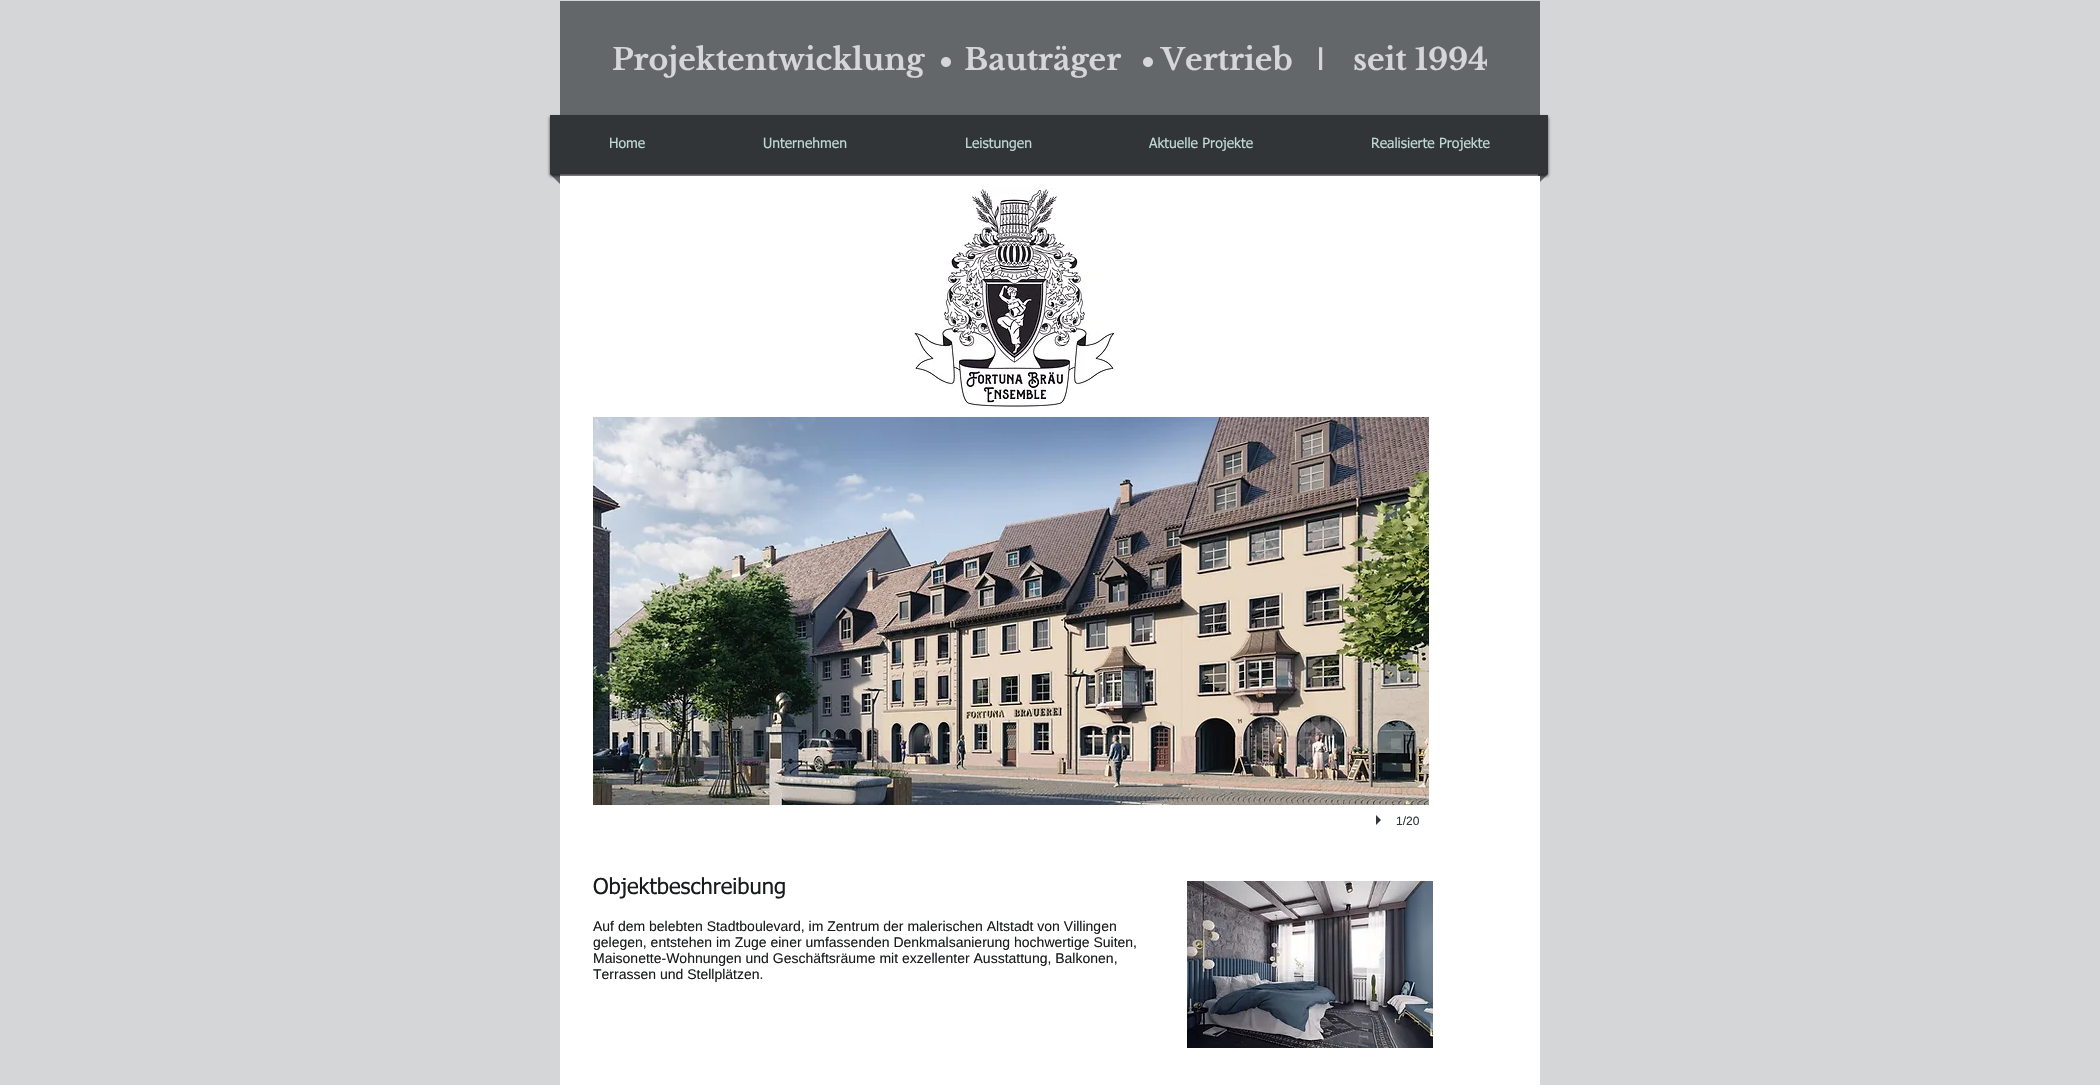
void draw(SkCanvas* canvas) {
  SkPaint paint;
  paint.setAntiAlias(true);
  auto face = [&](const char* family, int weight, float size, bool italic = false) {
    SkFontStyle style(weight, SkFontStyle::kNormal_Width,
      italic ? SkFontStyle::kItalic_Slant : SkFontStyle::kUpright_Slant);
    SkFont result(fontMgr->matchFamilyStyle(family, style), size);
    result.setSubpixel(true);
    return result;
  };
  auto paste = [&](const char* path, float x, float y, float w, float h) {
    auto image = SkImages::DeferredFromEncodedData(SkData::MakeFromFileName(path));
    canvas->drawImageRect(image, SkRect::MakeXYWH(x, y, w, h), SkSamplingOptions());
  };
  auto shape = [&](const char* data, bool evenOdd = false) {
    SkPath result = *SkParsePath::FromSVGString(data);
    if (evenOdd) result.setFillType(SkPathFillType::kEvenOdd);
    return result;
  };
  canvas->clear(0xffd4d6d7);
  paint.setColor(0xff636769);
  canvas->drawRect(SkRect::MakeXYWH(560, 1, 980, 114), paint);
  paste("img/1.png", 941, 57, 10, 10);
  paste("img/1.png", 1143, 57, 10, 10);
  canvas->drawPath(shape("M550 174H560V184Z"), paint);
  canvas->drawPath(shape("M1538 174H1548L1538 184Z"), paint);
  paint.setColor(0xb3000000);
  paint.setMaskFilter(SkMaskFilter::MakeBlur(kNormal_SkBlurStyle, 1.5f));
  canvas->drawRect(SkRect::MakeXYWH(550, 117, 998, 59), paint);
  paint.setMaskFilter(nullptr);
  paint.setColor(0xff313538);
  canvas->drawRect(SkRect::MakeXYWH(550, 115, 998, 59), paint);
  paint.setColor(0xffffffff);
  canvas->drawRect(SkRect::MakeXYWH(560, 176, 980, 909), paint);
  paste("img/2.png", 914, 187, 203, 220);
  paste("img/3.png", 593, 417, 836, 388);
  paint.setColor(0xff313538);
  canvas->drawPath(shape("M1376 825V815L1381 820Z"), paint);
  paste("img/4.png", 1187, 881, 246, 167);
  auto f0 = face("Libre Baskerville", 700, 30);
  paint.setColor(0xffd4d6d7);
  canvas->drawString("Projektentwicklung     Bauträger     Vertrieb", 612, 70, f0, paint);
  auto f1 = face("Liberation Sans", 400, 33);
  canvas->drawString("I", 1316, 70, f1, paint);
  canvas->drawString("seit 1994", 1353, 70, f0, paint);
  auto f2 = face("tahoma", 400, 14);
  paint.setColor(0xffbfd8d3);
  {
    const struct { const char* s; float x, y; } items[] = {
      {"Home", 609, 148},
      {"Unternehmen", 763, 148},
      {"Leistungen", 965, 148},
      {"Aktuelle Projekte", 1149, 148},
      {"Realisierte Projekte", 1371, 148},
    };
    for (auto [s, x, y] : items) {
      canvas->drawString(s, x, y, f2, paint);
    }
  }
  auto f3 = face("Liberation Sans", 400, 12);
  paint.setColor(0xff313538);
  canvas->drawString("1/20", 1396, 825, f3, paint);
  auto f4 = face("tahoma", 400, 22);
  paint.setColor(0xff181a1c);
  canvas->drawString("Objektbeschreibung", 593, 894, f4, paint);
  auto f5 = face("Liberation Sans", 400, 14);
  {
    const struct { const char* s; float x, y; } items[] = {
      {"Auf dem belebten Stadtboulevard, im Zentrum der malerischen Altstadt von Villingen", 593, 931},
      {"gelegen, entstehen im Zuge einer umfassenden Denkmalsanierung hochwertige Suiten,", 593, 947},
      {"Maisonette-Wohnungen und Geschäftsräume mit exzellenter Ausstattung, Balkonen,", 593, 963},
      {"Terrassen und Stellplätzen.", 593, 979},
    };
    for (auto [s, x, y] : items) {
      canvas->drawString(s, x, y, f5, paint);
    }
  }
}
